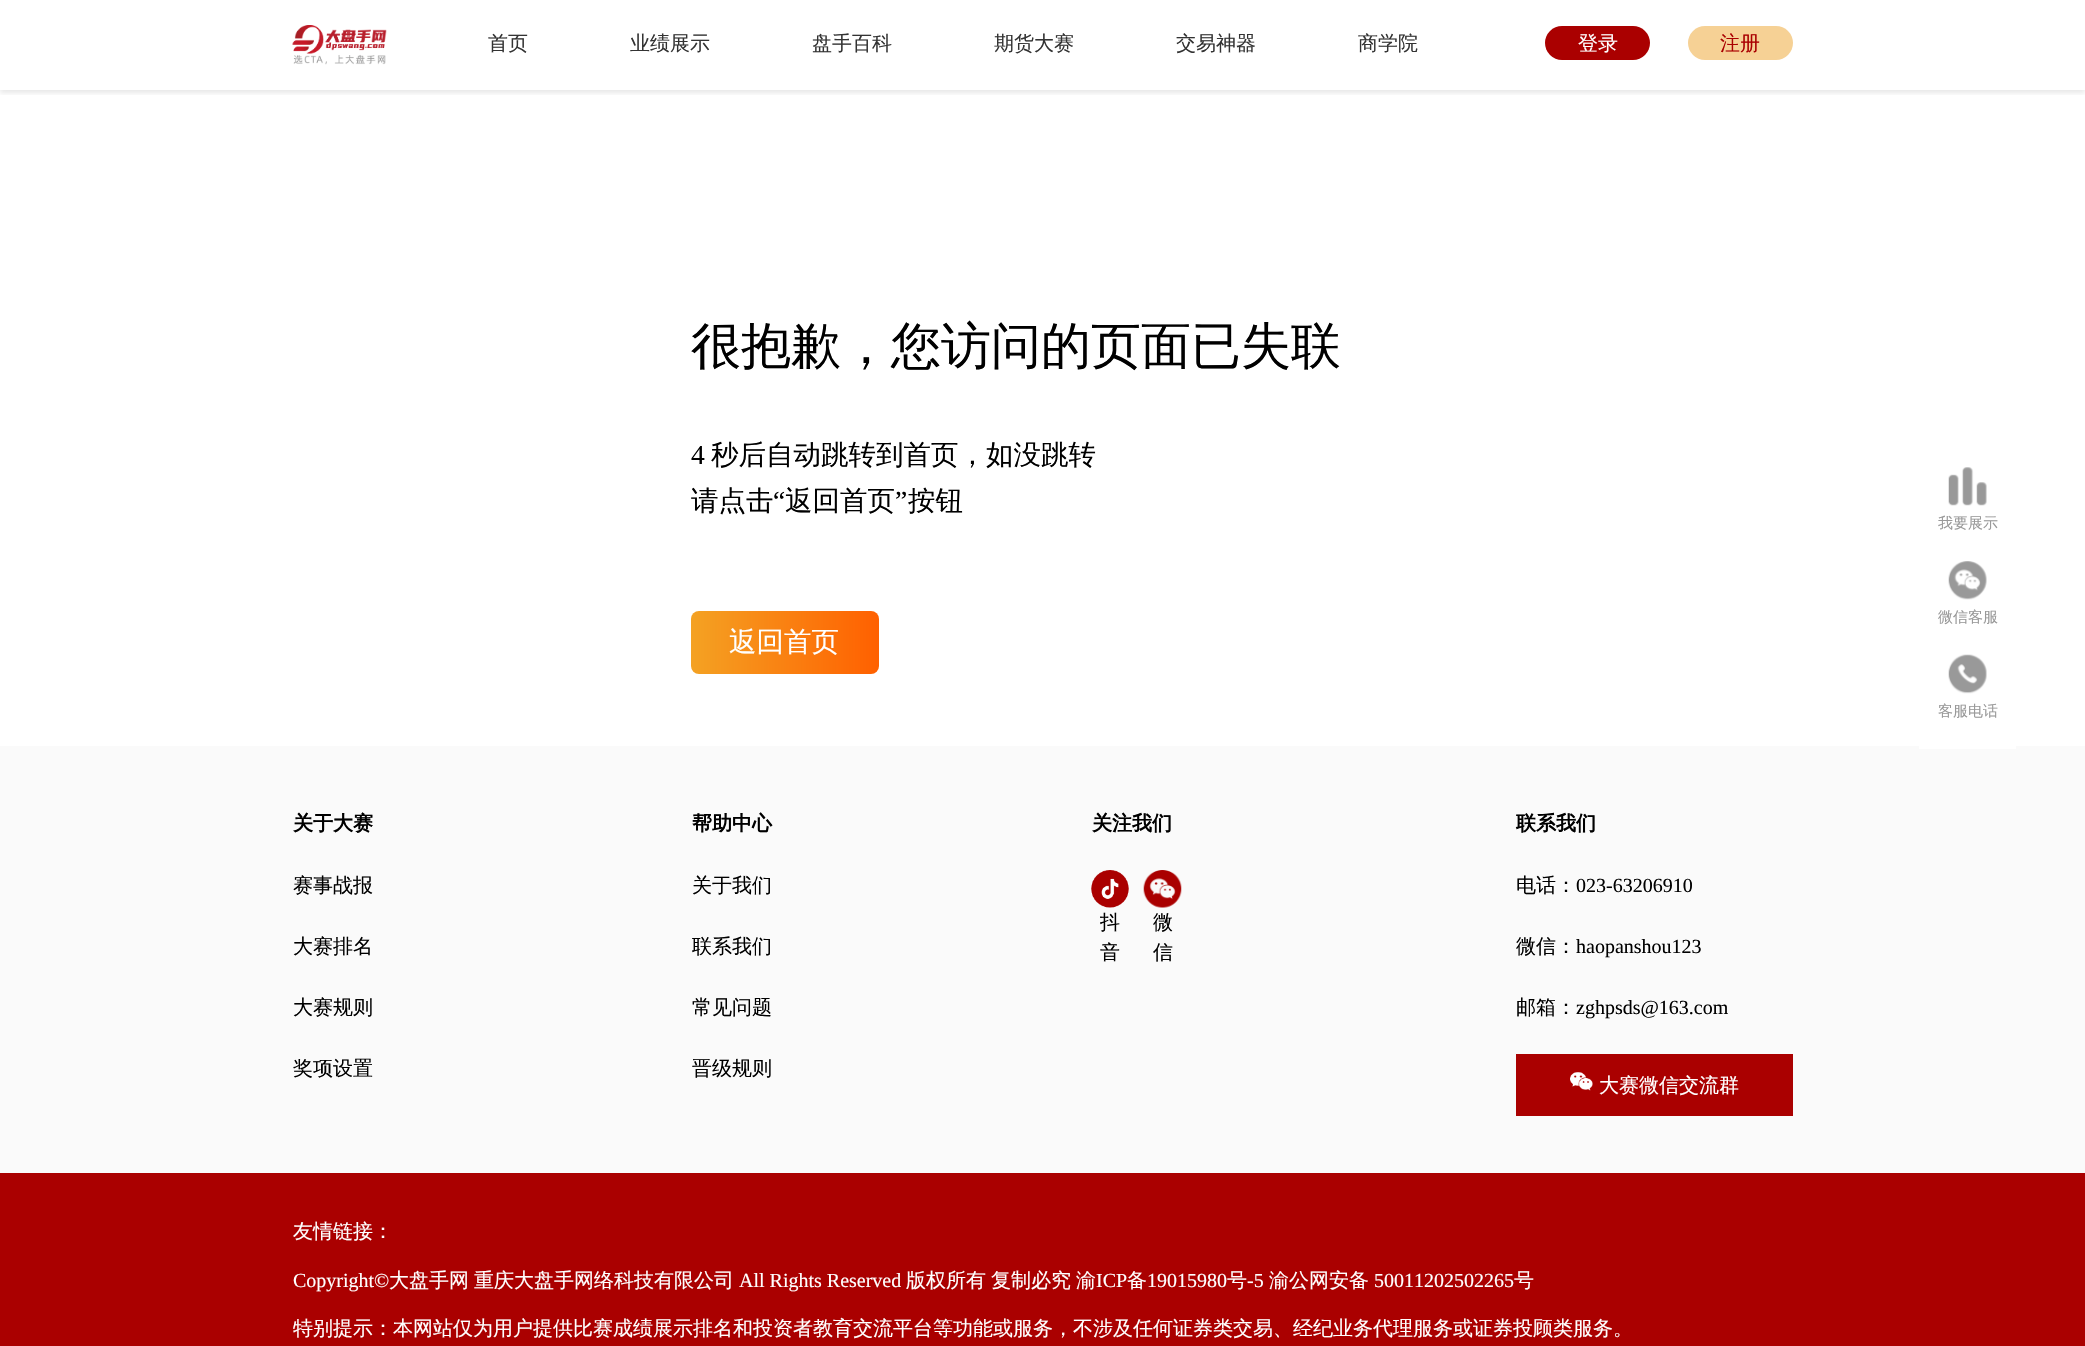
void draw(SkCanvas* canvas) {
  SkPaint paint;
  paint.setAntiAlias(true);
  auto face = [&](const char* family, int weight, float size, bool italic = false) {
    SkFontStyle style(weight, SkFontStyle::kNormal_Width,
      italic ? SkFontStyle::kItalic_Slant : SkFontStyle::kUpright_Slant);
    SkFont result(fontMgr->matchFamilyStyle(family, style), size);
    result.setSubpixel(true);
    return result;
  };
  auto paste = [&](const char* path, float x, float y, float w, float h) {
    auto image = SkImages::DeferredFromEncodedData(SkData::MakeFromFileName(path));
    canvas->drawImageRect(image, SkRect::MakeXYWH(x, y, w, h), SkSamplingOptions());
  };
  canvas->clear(0xffffffff);
  canvas->save();
  canvas->clipRect(SkRect::MakeXYWH(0, 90, 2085, 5));
  paint.setColor(0x17000000);
  paint.setMaskFilter(SkMaskFilter::MakeBlur(kNormal_SkBlurStyle, 2.5f));
  canvas->drawRect(SkRect::MakeXYWH(0, 3, 2085, 90), paint);
  paint.setMaskFilter(nullptr);
  canvas->restore();
  paste("img/1.png", 292, 25, 95, 40);
  paint.setColor(0xffaa0000);
  canvas->drawRoundRect(SkRect::MakeXYWH(1545, 26, 105, 34), 17, 17, paint);
  paint.setColor(0xfff6d195);
  canvas->drawRoundRect(SkRect::MakeXYWH(1688, 26, 105, 34), 17, 17, paint);
  {
    const SkColor colors[] = {0xfff4a223, 0xffff6000};
    const float stops[] = {0, 1};
    const SkPoint ends[] = {{691, 643}, {879, 643}};
    paint.setShader(SkGradientShader::MakeLinear(ends, colors, stops, 2, SkTileMode::kClamp));
    paint.setAlpha(255);
  }
  canvas->drawRoundRect(SkRect::MakeXYWH(691, 611, 188, 63), 8, 8, paint);
  paint.setShader(nullptr);
  paint.setColor(0xfffafafa);
  canvas->drawRect(SkRect::MakeXYWH(0, 746, 2085, 427), paint);
  paint.setColor(0xffffffff);
  canvas->drawRect(SkRect::MakeXYWH(1919, 746, 97, 3), paint);
  paste("img/2.png", 1948, 467, 39, 39);
  paste("img/3.png", 1948, 561, 39, 39);
  paste("img/4.png", 1948, 654, 39, 40);
  paste("img/5.png", 1091, 870, 38, 38);
  paste("img/6.png", 1143, 870, 39, 38);
  paint.setColor(0xffaa0000);
  canvas->drawRect(SkRect::MakeXYWH(1516, 1054, 277, 62), paint);
  paste("img/7.png", 1570, 1072, 23, 19);
  canvas->drawRect(SkRect::MakeXYWH(0, 1173, 2085, 173), paint);
  auto f0 = face("WenQuanYi Zen Hei", 500, 20);
  paint.setColor(0xff333333);
  {
    const struct { const char* s; float x, y; } items[] = {
      {"首页", 488, 50},
      {"业绩展示", 630, 50},
      {"盘手百科", 812, 50},
      {"期货大赛", 994, 50},
      {"交易神器", 1176, 50},
      {"商学院", 1358, 50},
    };
    for (auto [s, x, y] : items) {
      canvas->drawString(s, x, y, f0, paint);
    }
  }
  paint.setColor(0xffffffff);
  canvas->drawString("登录", 1578, 50, f0, paint);
  paint.setColor(0xffaa0000);
  canvas->drawString("注册", 1720, 50, f0, paint);
  auto f1 = face("WenQuanYi Zen Hei", 500, 50);
  paint.setColor(0xff000000);
  canvas->drawString("很抱歉，您访问的页面已失联", 691, 363, f1, paint);
  auto f2 = face("Liberation Serif", 400, 27.5f);
  canvas->drawString("4", 691, 464, f2, paint);
  auto f3 = face("WenQuanYi Zen Hei", 500, 27.5f);
  canvas->drawString("秒后自动跳转到首页，如没跳转", 711, 464, f3, paint);
  canvas->drawString("请点击", 691, 510, f3, paint);
  canvas->drawString("“", 773, 510, f2, paint);
  canvas->drawString("返回首页", 785, 510, f3, paint);
  canvas->drawString("”", 895, 510, f2, paint);
  canvas->drawString("按钮", 908, 510, f3, paint);
  paint.setColor(0xffffffff);
  canvas->drawString("返回首页", 729, 651, f3, paint);
  auto f4 = face("WenQuanYi Zen Hei", 500, 15);
  paint.setColor(0xff999999);
  {
    const struct { const char* s; float x, y; } items[] = {
      {"我要展示", 1938, 528},
      {"微信客服", 1938, 622},
      {"客服电话", 1938, 716},
    };
    for (auto [s, x, y] : items) {
      canvas->drawString(s, x, y, f4, paint);
    }
  }
  auto f5 = face("WenQuanYi Zen Hei", 700, 20);
  paint.setColor(0xff000000);
  canvas->drawString("关于大赛", 293, 830, f5, paint);
  {
    const struct { const char* s; float x, y; } items[] = {
      {"赛事战报", 293, 892},
      {"大赛排名", 293, 953},
      {"大赛规则", 293, 1014},
      {"奖项设置", 293, 1075},
    };
    for (auto [s, x, y] : items) {
      canvas->drawString(s, x, y, f0, paint);
    }
  }
  canvas->drawString("帮助中心", 692, 830, f5, paint);
  {
    const struct { const char* s; float x, y; } items[] = {
      {"关于我们", 692, 892},
      {"联系我们", 692, 953},
      {"常见问题", 692, 1014},
      {"晋级规则", 692, 1075},
    };
    for (auto [s, x, y] : items) {
      canvas->drawString(s, x, y, f0, paint);
    }
  }
  canvas->drawString("关注我们", 1092, 830, f5, paint);
  {
    const struct { const char* s; float x, y; } items[] = {
      {"抖", 1100, 929},
      {"音", 1100, 959},
      {"微", 1153, 929},
      {"信", 1153, 959},
    };
    for (auto [s, x, y] : items) {
      canvas->drawString(s, x, y, f0, paint);
    }
  }
  canvas->drawString("联系我们", 1516, 830, f5, paint);
  canvas->drawString("电话：", 1516, 892, f0, paint);
  auto f6 = face("Liberation Serif", 400, 20);
  canvas->drawString("023-63206910", 1576, 892, f6, paint);
  canvas->drawString("微信：", 1516, 953, f0, paint);
  canvas->drawString("haopanshou123", 1576, 953, f6, paint);
  canvas->drawString("邮箱：", 1516, 1014, f0, paint);
  canvas->drawString("zghpsds@163.com", 1576, 1014, f6, paint);
  paint.setColor(0xffffffff);
  canvas->drawString("大赛微信交流群", 1599, 1092, f0, paint);
  canvas->drawString("友情链接：", 293, 1238, f0, paint);
  canvas->drawString("Copyright©", 293, 1287, f6, paint);
  canvas->drawString("大盘手网", 389, 1287, f0, paint);
  canvas->drawString("重庆大盘手网络科技有限公司", 474, 1287, f0, paint);
  canvas->drawString("All Rights Reserved", 739, 1287, f6, paint);
  {
    const struct { const char* s; float x, y; } items[] = {
      {"版权所有", 906, 1287},
      {"复制必究", 991, 1287},
      {"渝", 1076, 1287},
    };
    for (auto [s, x, y] : items) {
      canvas->drawString(s, x, y, f0, paint);
    }
  }
  canvas->drawString("ICP", 1096, 1287, f6, paint);
  canvas->drawString("备", 1127, 1287, f0, paint);
  canvas->drawString("19015980", 1147, 1287, f6, paint);
  canvas->drawString("号", 1227, 1287, f0, paint);
  canvas->drawString("-5", 1247, 1287, f6, paint);
  canvas->drawString("渝公网安备", 1269, 1287, f0, paint);
  canvas->drawString("50011202502265", 1374, 1287, f6, paint);
  canvas->drawString("号", 1514, 1287, f0, paint);
  canvas->drawString("特别提示：本网站仅为用户提供比赛成绩展示排名和投资者教育交流平台等功能或服务，不涉及任何证券类交易、经纪业务代理服务或证券投顾类服务。", 293, 1335, f0, paint);
}
